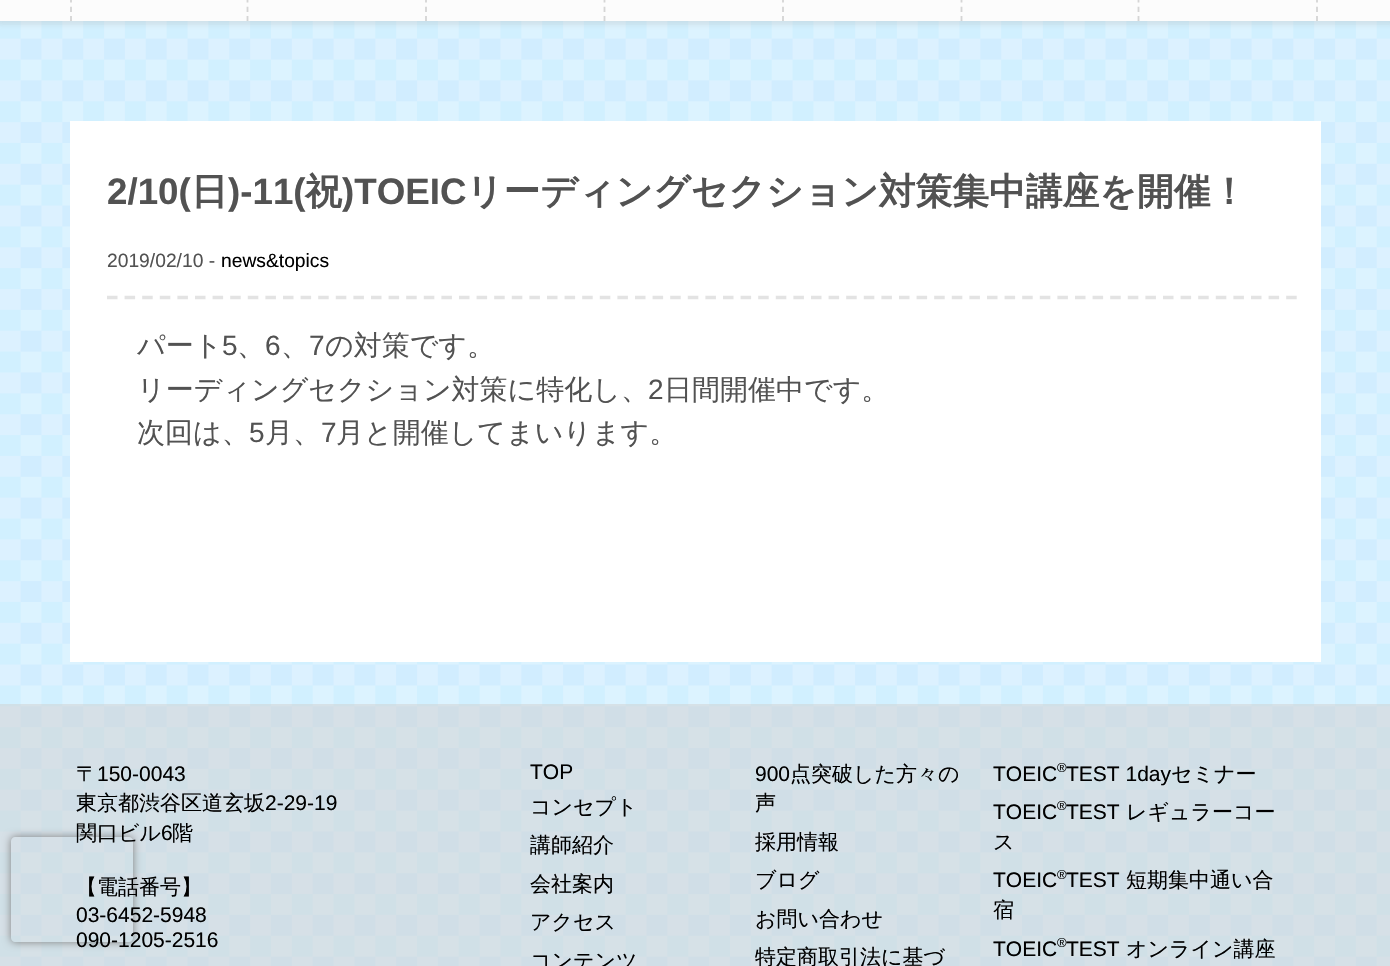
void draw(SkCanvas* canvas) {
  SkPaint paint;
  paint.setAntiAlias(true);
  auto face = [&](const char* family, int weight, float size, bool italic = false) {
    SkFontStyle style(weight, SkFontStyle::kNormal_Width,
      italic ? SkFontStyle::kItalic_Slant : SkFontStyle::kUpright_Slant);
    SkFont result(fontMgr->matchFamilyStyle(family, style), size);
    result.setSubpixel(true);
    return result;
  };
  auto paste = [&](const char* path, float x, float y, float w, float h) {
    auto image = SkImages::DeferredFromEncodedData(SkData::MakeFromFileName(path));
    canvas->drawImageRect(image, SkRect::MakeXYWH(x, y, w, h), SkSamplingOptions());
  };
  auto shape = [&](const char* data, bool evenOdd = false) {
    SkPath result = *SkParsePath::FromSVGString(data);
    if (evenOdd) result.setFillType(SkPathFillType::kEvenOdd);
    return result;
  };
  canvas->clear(0xffffffff);
  paste("img/1.png", 0, 21, 1390, 945);
  paint.setColor(0x80cfcfcf);
  canvas->drawRect(SkRect::MakeXYWH(0, 704, 1390, 262), paint);
  canvas->save();
  canvas->clipPath(shape("M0 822H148V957H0ZM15 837H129C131 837 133 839 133 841V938C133 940 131 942 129 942H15C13 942 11 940 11 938V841C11 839 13 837 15 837Z", true), true);
  paint.setColor(0xff808080);
  paint.setMaskFilter(SkMaskFilter::MakeBlur(kNormal_SkBlurStyle, 4.5f));
  canvas->drawRoundRect(SkRect::MakeXYWH(11, 837, 122, 105), 4, 4, paint);
  paint.setMaskFilter(nullptr);
  canvas->restore();
  paint.setColor(0x3da8a8a8);
  paint.setMaskFilter(SkMaskFilter::MakeBlur(kNormal_SkBlurStyle, 2.5f));
  canvas->drawRect(SkRect::MakeXYWH(-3, -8, 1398, 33), paint);
  paint.setMaskFilter(nullptr);
  paint.setColor(0xfffcfcfc);
  canvas->drawRect(SkRect::MakeXYWH(0, 0, 1390, 21), paint);
  paint.setStroke(true);
  paint.setStrokeWidth(1.8f);
  paint.setColor(0xffd5d5d5);
  paint.setPathEffect(SkDashPathEffect::Make({{5.25f, 4.08f}}, 0));
  canvas->drawPath(shape("M247.5-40V21"), paint);
  paint.setPathEffect(nullptr);
  paint.setPathEffect(SkDashPathEffect::Make({{5.25f, 4.08f}}, 0));
  canvas->drawPath(shape("M71-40V21"), paint);
  paint.setPathEffect(nullptr);
  paint.setPathEffect(SkDashPathEffect::Make({{5.25f, 4.08f}}, 0));
  canvas->drawPath(shape("M426-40V21"), paint);
  paint.setPathEffect(nullptr);
  paint.setPathEffect(SkDashPathEffect::Make({{5.25f, 4.08f}}, 0));
  canvas->drawPath(shape("M604.5-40V21"), paint);
  paint.setPathEffect(nullptr);
  paint.setPathEffect(SkDashPathEffect::Make({{5.25f, 4.08f}}, 0));
  canvas->drawPath(shape("M783-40V21"), paint);
  paint.setPathEffect(nullptr);
  paint.setPathEffect(SkDashPathEffect::Make({{5.25f, 4.08f}}, 0));
  canvas->drawPath(shape("M961.5-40V21"), paint);
  paint.setPathEffect(nullptr);
  paint.setPathEffect(SkDashPathEffect::Make({{5.25f, 4.08f}}, 0));
  canvas->drawPath(shape("M1138.5-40V21"), paint);
  paint.setPathEffect(nullptr);
  paint.setPathEffect(SkDashPathEffect::Make({{5.25f, 4.08f}}, 0));
  canvas->drawPath(shape("M1317-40V21"), paint);
  paint.setPathEffect(nullptr);
  paint.setStroke(false);
  paint.setColor(0xffffffff);
  canvas->drawRect(SkRect::MakeXYWH(70, 121, 1251, 541), paint);
  paint.setStroke(true);
  paint.setStrokeWidth(3.5f);
  paint.setColor(0xffe3e3e3);
  paint.setPathEffect(SkDashPathEffect::Make({{10.5f, 7.1f}}, 0));
  canvas->drawPath(shape("M107 297.5H1297"), paint);
  paint.setPathEffect(nullptr);
  auto f0 = face("Liberation Sans", 700, 36.75f);
  paint.setStroke(false);
  paint.setColor(0xff525252);
  canvas->drawString("2/10(", 107, 204, f0, paint);
  auto f1 = face("WenQuanYi Zen Hei", 700, 36.75f);
  canvas->drawString("日", 191, 204, f1, paint);
  canvas->drawString(")-11(", 228, 204, f0, paint);
  canvas->drawString("祝", 305, 204, f1, paint);
  canvas->drawString(")TOEIC", 342, 204, f0, paint);
  canvas->drawString("リーディングセクション対策集中講座を開催！", 466, 204, f1, paint);
  auto f2 = face("Liberation Sans", 400, 19.25f);
  canvas->drawString("2019/02/10 -", 107, 267, f2, paint);
  paint.setColor(0xff000000);
  canvas->drawString("news&topics", 221, 267, f2, paint);
  auto f3 = face("WenQuanYi Zen Hei", 500, 28);
  paint.setColor(0xff525252);
  canvas->drawString("パート", 137, 355, f3, paint);
  auto f4 = face("Liberation Sans", 400, 28);
  canvas->drawString("5", 222, 355, f4, paint);
  canvas->drawString("、", 237, 355, f3, paint);
  canvas->drawString("6", 265, 355, f4, paint);
  canvas->drawString("、", 281, 355, f3, paint);
  canvas->drawString("7", 309, 355, f4, paint);
  canvas->drawString("の対策です。", 325, 355, f3, paint);
  canvas->drawString("リーディングセクション対策に特化し、", 137, 399, f3, paint);
  canvas->drawString("2", 648, 399, f4, paint);
  canvas->drawString("日間開催中です。", 664, 399, f3, paint);
  canvas->drawString("次回は、", 137, 442, f3, paint);
  canvas->drawString("5", 249, 442, f4, paint);
  canvas->drawString("月、", 265, 442, f3, paint);
  canvas->drawString("7", 321, 442, f4, paint);
  canvas->drawString("月と開催してまいります。", 336, 442, f3, paint);
  auto f5 = face("WenQuanYi Zen Hei", 500, 21);
  paint.setColor(0xff000000);
  canvas->drawString("〒", 76, 781, f5, paint);
  auto f6 = face("Liberation Sans", 400, 21);
  canvas->drawString("150-0043", 97, 781, f6, paint);
  canvas->drawString("東京都渋谷区道玄坂", 76, 810, f5, paint);
  canvas->drawString("2-29-19", 265, 810, f6, paint);
  canvas->drawString("関口ビル", 76, 840, f5, paint);
  canvas->drawString("6", 161, 840, f6, paint);
  canvas->drawString("階", 172, 840, f5, paint);
  canvas->drawString("【電話番号】", 76, 894, f5, paint);
  {
    const struct { const char* s; float x, y; } items[] = {
      {"03-6452-5948", 76, 922},
      {"090-1205-2516", 76, 947},
      {"TOP", 530, 779},
    };
    for (auto [s, x, y] : items) {
      canvas->drawString(s, x, y, f6, paint);
    }
  }
  {
    const struct { const char* s; float x, y; } items[] = {
      {"コンセプト", 530, 814},
      {"講師紹介", 530, 852},
      {"会社案内", 530, 891},
      {"アクセス", 530, 929},
      {"コンテンツ", 530, 968},
    };
    for (auto [s, x, y] : items) {
      canvas->drawString(s, x, y, f5, paint);
    }
  }
  canvas->drawString("900", 755, 781, f6, paint);
  {
    const struct { const char* s; float x, y; } items[] = {
      {"点突破した方々の", 790, 781},
      {"声", 755, 810},
      {"採用情報", 755, 849},
      {"ブログ", 755, 887},
      {"お問い合わせ", 755, 926},
      {"特定商取引法に基づ", 755, 964},
    };
    for (auto [s, x, y] : items) {
      canvas->drawString(s, x, y, f5, paint);
    }
  }
  canvas->drawString("TOEIC", 993, 781, f6, paint);
  auto f7 = face("Liberation Sans", 400, 13);
  canvas->drawString("®", 1057, 772, f7, paint);
  canvas->drawString("TEST 1day", 1066, 781, f6, paint);
  canvas->drawString("セミナー", 1171, 781, f5, paint);
  canvas->drawString("TOEIC", 993, 819, f6, paint);
  canvas->drawString("®", 1057, 810, f7, paint);
  canvas->drawString("TEST", 1066, 819, f6, paint);
  canvas->drawString("レギュラーコー", 1126, 819, f5, paint);
  canvas->drawString("ス", 993, 849, f5, paint);
  canvas->drawString("TOEIC", 993, 887, f6, paint);
  canvas->drawString("®", 1057, 879, f7, paint);
  canvas->drawString("TEST", 1066, 887, f6, paint);
  canvas->drawString("短期集中通い合", 1126, 887, f5, paint);
  canvas->drawString("宿", 993, 917, f5, paint);
  canvas->drawString("TOEIC", 993, 956, f6, paint);
  canvas->drawString("®", 1057, 947, f7, paint);
  canvas->drawString("TEST", 1066, 956, f6, paint);
  canvas->drawString("オンライン講座", 1126, 956, f5, paint);
}
